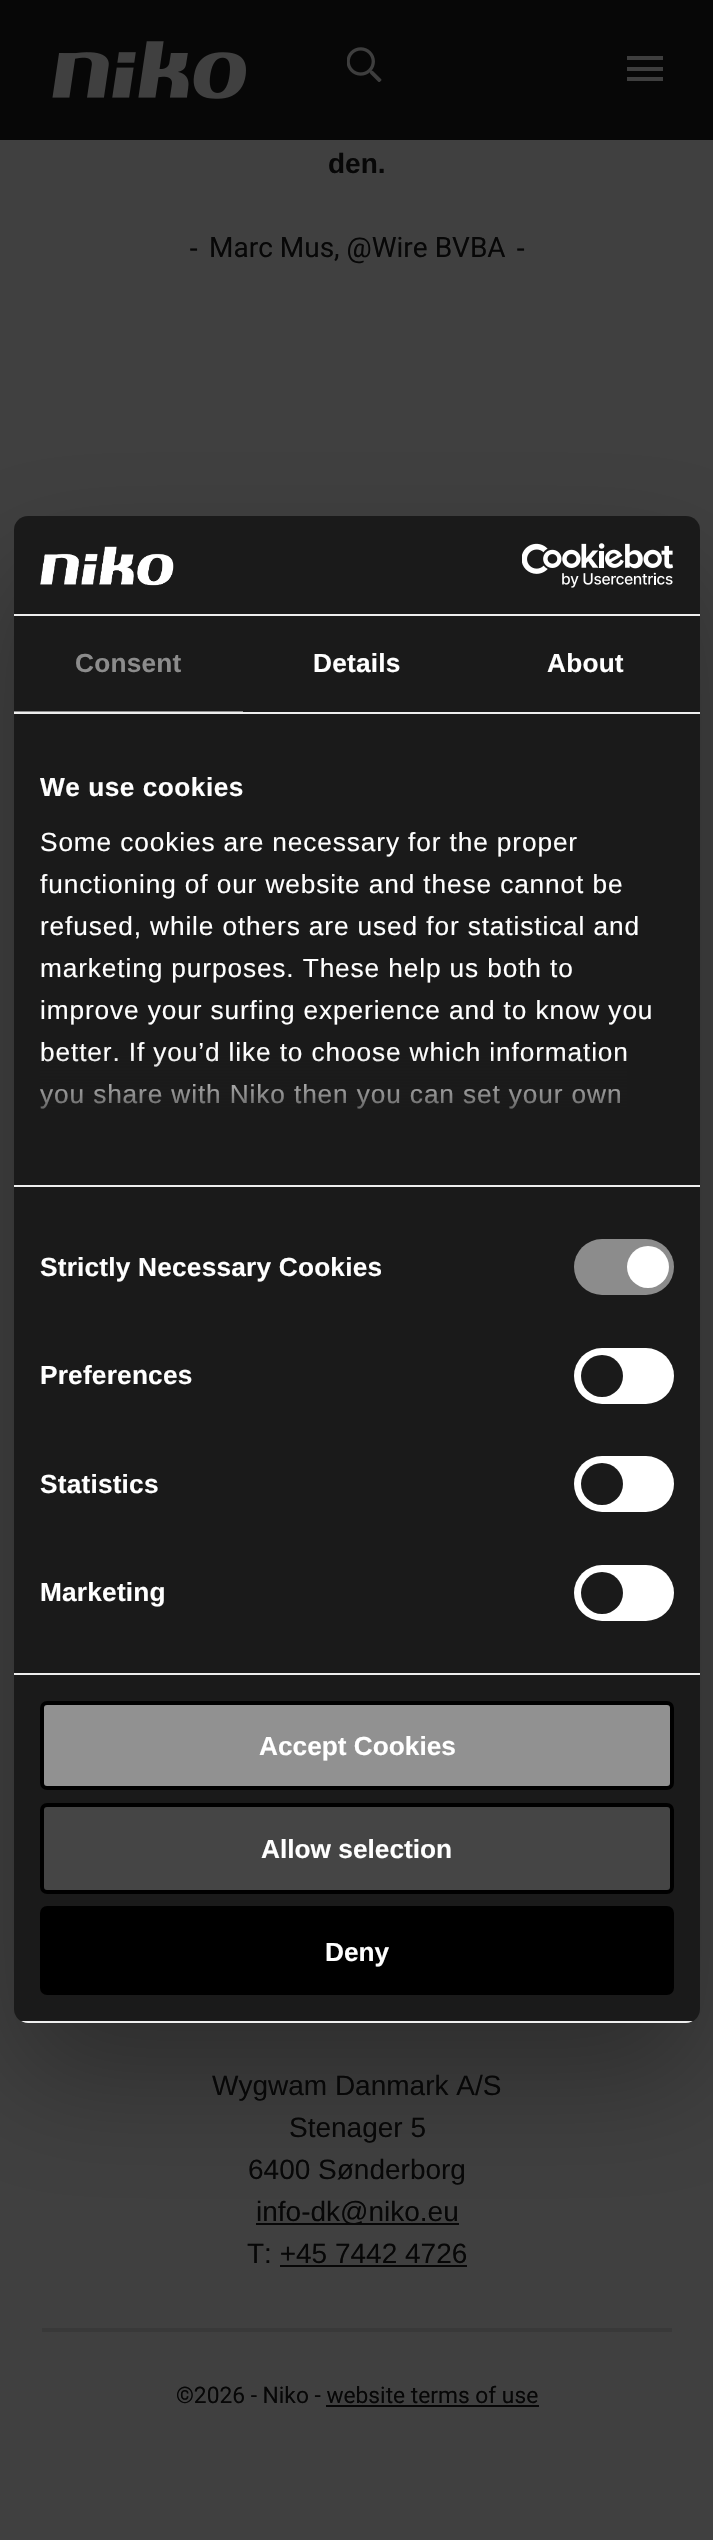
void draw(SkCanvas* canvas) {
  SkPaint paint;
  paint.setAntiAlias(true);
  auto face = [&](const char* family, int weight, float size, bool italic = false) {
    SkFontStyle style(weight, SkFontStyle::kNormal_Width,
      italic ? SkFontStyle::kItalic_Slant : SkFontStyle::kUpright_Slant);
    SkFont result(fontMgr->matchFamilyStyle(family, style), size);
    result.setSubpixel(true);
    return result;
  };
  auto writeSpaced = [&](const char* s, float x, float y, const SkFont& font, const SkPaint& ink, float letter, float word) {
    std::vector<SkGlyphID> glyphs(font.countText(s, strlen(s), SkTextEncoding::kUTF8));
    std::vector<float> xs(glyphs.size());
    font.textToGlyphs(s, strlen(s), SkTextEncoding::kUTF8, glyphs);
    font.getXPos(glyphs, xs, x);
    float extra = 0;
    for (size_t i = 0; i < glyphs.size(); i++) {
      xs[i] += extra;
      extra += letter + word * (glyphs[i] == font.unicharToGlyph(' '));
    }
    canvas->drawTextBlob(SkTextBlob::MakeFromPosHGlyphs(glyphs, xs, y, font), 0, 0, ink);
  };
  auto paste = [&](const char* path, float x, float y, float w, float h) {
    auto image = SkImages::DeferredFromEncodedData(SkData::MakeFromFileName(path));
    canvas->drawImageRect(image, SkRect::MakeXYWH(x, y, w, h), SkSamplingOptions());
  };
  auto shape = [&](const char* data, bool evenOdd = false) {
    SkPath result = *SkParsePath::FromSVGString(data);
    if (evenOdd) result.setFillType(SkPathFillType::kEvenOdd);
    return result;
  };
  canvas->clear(0xff404040);
  paint.setColor(0xff070707);
  canvas->drawRect(SkRect::MakeXYWH(0, 0, 713, 140), paint);
  paste("img/1.png", 52, 41, 194, 58);
  {
    const struct { float x, y, w, h; SkColor color; } items[] = {
      {627, 56, 36, 4, 0xff3e3e3e},
      {627, 67, 36, 4, 0xff3e3e3e},
      {627, 77, 36, 4, 0xff3e3e3e},
    };
    for (auto [x, y, w, h, color] : items) {
      paint.setColor(color);
      canvas->drawRect(SkRect::MakeXYWH(x, y, w, h), paint);
    }
  }
  paste("img/2.png", 347, 47, 35, 35);
  paint.setColor(0xff070707);
  canvas->drawRect(SkRect::MakeXYWH(256, 2223, 203, 2), paint);
  paint.setColor(0x4d000000);
  paint.setMaskFilter(SkMaskFilter::MakeBlur(kNormal_SkBlurStyle, 59.5f));
  canvas->drawRoundRect(SkRect::MakeXYWH(14, 572, 686, 1507), 14, 14, paint);
  paint.setMaskFilter(nullptr);
  paint.setColor(0xff1a1a1a);
  canvas->drawRoundRect(SkRect::MakeXYWH(14, 516, 686, 1507), 14, 14, paint);
  paint.setColor(0xffeeeeee);
  canvas->drawRect(SkRect::MakeXYWH(14, 614, 686, 2), paint);
  paste("img/3.png", 40, 546, 134, 40);
  paste("img/4.png", 522, 543, 152, 45);
  {
    const struct { float x, y, w, h; SkColor color; } items[] = {
      {14, 712, 686, 2, 0xffeeeeee},
      {14, 711, 229, 1, 0xff8c8c8c},
      {14, 1185, 686, 2, 0xffeeeeee},
      {14, 1673, 686, 2, 0xffeeeeee},
    };
    for (auto [x, y, w, h, color] : items) {
      paint.setColor(color);
      canvas->drawRect(SkRect::MakeXYWH(x, y, w, h), paint);
    }
  }
  paint.setColor(0xff8c8c8c);
  canvas->drawRoundRect(SkRect::MakeXYWH(574, 1239, 100, 56), 28, 28, paint);
  paint.setColor(0xffffffff);
  canvas->drawCircle(648, 1267, 21, paint);
  canvas->drawRoundRect(SkRect::MakeXYWH(574, 1348, 100, 56), 28, 28, paint);
  paint.setColor(0xff1a1a1a);
  canvas->drawCircle(602, 1376, 21, paint);
  paint.setColor(0xffffffff);
  canvas->drawRoundRect(SkRect::MakeXYWH(574, 1456, 100, 56), 28, 28, paint);
  paint.setColor(0xff1a1a1a);
  canvas->drawCircle(602, 1484, 21, paint);
  paint.setColor(0xffffffff);
  canvas->drawRoundRect(SkRect::MakeXYWH(574, 1565, 100, 56), 28, 28, paint);
  paint.setColor(0xff1a1a1a);
  canvas->drawCircle(602, 1593, 21, paint);
  canvas->save();
  canvas->clipPath(shape("M28 516H686C693.5 516 700 522.5 700 530V2009C700 2016.5 693.5 2023 686 2023H28C20.5 2023 14 2016.5 14 2009V530C14 522.5 20.5 516 28 516Z"), true);
  paint.setColor(0xffeeeeee);
  canvas->drawRect(SkRect::MakeXYWH(14, 2021, 686, 2), paint);
  canvas->restore();
  paint.setColor(0xff919191);
  canvas->drawRoundRect(SkRect::MakeXYWH(42, 1703, 630, 85), 5, 5, paint);
  paint.setStroke(true);
  paint.setStrokeWidth(4);
  paint.setColor(0xff000000);
  canvas->drawRoundRect(SkRect::MakeXYWH(42, 1703, 630, 85), 5, 5, paint);
  paint.setStroke(false);
  paint.setColor(0xff454545);
  canvas->drawRoundRect(SkRect::MakeXYWH(42, 1805, 630, 87), 5, 5, paint);
  paint.setStroke(true);
  paint.setColor(0xff000000);
  canvas->drawRoundRect(SkRect::MakeXYWH(42, 1805, 630, 87), 5, 5, paint);
  paint.setStroke(false);
  canvas->drawRoundRect(SkRect::MakeXYWH(42, 1908, 630, 85), 5, 5, paint);
  paint.setStroke(true);
  canvas->drawRoundRect(SkRect::MakeXYWH(42, 1908, 630, 85), 5, 5, paint);
  paint.setStroke(false);
  {
    const struct { float x, y, w, h; SkColor color; } items[] = {
      {280, 2265, 187, 2, 0xff070707},
      {42, 2328, 630, 4, 0xff393939},
      {326, 2405, 213, 2, 0xff070707},
    };
    for (auto [x, y, w, h, color] : items) {
      paint.setColor(color);
      canvas->drawRect(SkRect::MakeXYWH(x, y, w, h), paint);
    }
  }
  auto f0 = face("Liberation Sans", 700, 28);
  canvas->drawString("den.", 328, 173, f0, paint);
  auto f1 = face("Liberation Sans", 400, 28);
  canvas->drawString("-", 189, 257, f1, paint);
  auto f2 = face("Roboto", 400, 28);
  canvas->drawString("Marc Mus, @Wire BVBA", 209, 257, f2, paint);
  canvas->drawString("-", 516, 257, f1, paint);
  auto f3 = face("Liberation Sans", 700, 26.25f);
  paint.setColor(0xff8c8c8c);
  writeSpaced("Consent", 75, 672, f3, paint, 0.2f, 0);
  paint.setColor(0xffffffff);
  writeSpaced("Details", 313, 672, f3, paint, 0.2f, 0);
  writeSpaced("About", 547, 672, f3, paint, 0.2f, 0);
  writeSpaced("We use cookies", 40, 796, f3, paint, 0.5f, 0);
  auto f4 = face("Liberation Sans", 400, 26.25f);
  {
    const struct { const char* s; float x, y; } items[] = {
      {"Some cookies are necessary for the proper", 40, 851},
      {"functioning of our website and these cannot be", 40, 893},
      {"refused, while others are used for statistical and", 40, 935},
      {"marketing purposes. These help us both to", 40, 977},
      {"improve your surfing experience and to know you", 40, 1019},
      {"better. If you’d like to choose which information", 40, 1061},
      {"you share with Niko then you can set your own", 40, 1103},
    };
    for (auto [s, x, y] : items) {
      writeSpaced(s, x, y, f4, paint, 0.88f, 0);
    }
  }
  {
    const SkColor colors[] = {0xff1a1a1a, 0xcc1a1a1a, 0x001a1a1a};
    const float stops[] = {0, 0.5f, 1};
    const SkPoint ends[] = {{346, 1185}, {346, 1054}};
    paint.setShader(SkGradientShader::MakeLinear(ends, colors, stops, 3, SkTileMode::kClamp));
    paint.setAlpha(255);
  }
  canvas->drawRect(SkRect::MakeXYWH(40, 1056, 587, 53), paint);
  paint.setShader(nullptr);
  paint.setColor(0xffffffff);
  {
    const struct { const char* s; float x, y; } items[] = {
      {"Strictly Necessary Cookies", 40, 1276},
      {"Preferences", 40, 1384},
      {"Statistics", 40, 1493},
      {"Marketing", 40, 1601},
    };
    for (auto [s, x, y] : items) {
      writeSpaced(s, x, y, f3, paint, 0.2f, 0);
    }
  }
  {
    const struct { const char* s; float x, y; } items[] = {
      {"Accept Cookies", 259, 1755},
      {"Allow selection", 261, 1858},
      {"Deny", 325, 1961},
    };
    for (auto [s, x, y] : items) {
      canvas->drawString(s, x, y, f3, paint);
    }
  }
  paint.setColor(0xff070707);
  {
    const struct { const char* s; float x, y; } items[] = {
      {"Wygwam Danmark A/S", 212, 2095},
      {"Stenager 5", 289, 2137},
      {"6400 Sønderborg", 248, 2179},
      {"info-dk@niko.eu", 256, 2221},
      {"T: +45 7442 4726", 247, 2263},
    };
    for (auto [s, x, y] : items) {
      canvas->drawString(s, x, y, f1, paint);
    }
  }
  auto f5 = face("Roboto", 400, 22.75f);
  canvas->drawString("©2026 - Niko - website terms of use", 176, 2403, f5, paint);
}
